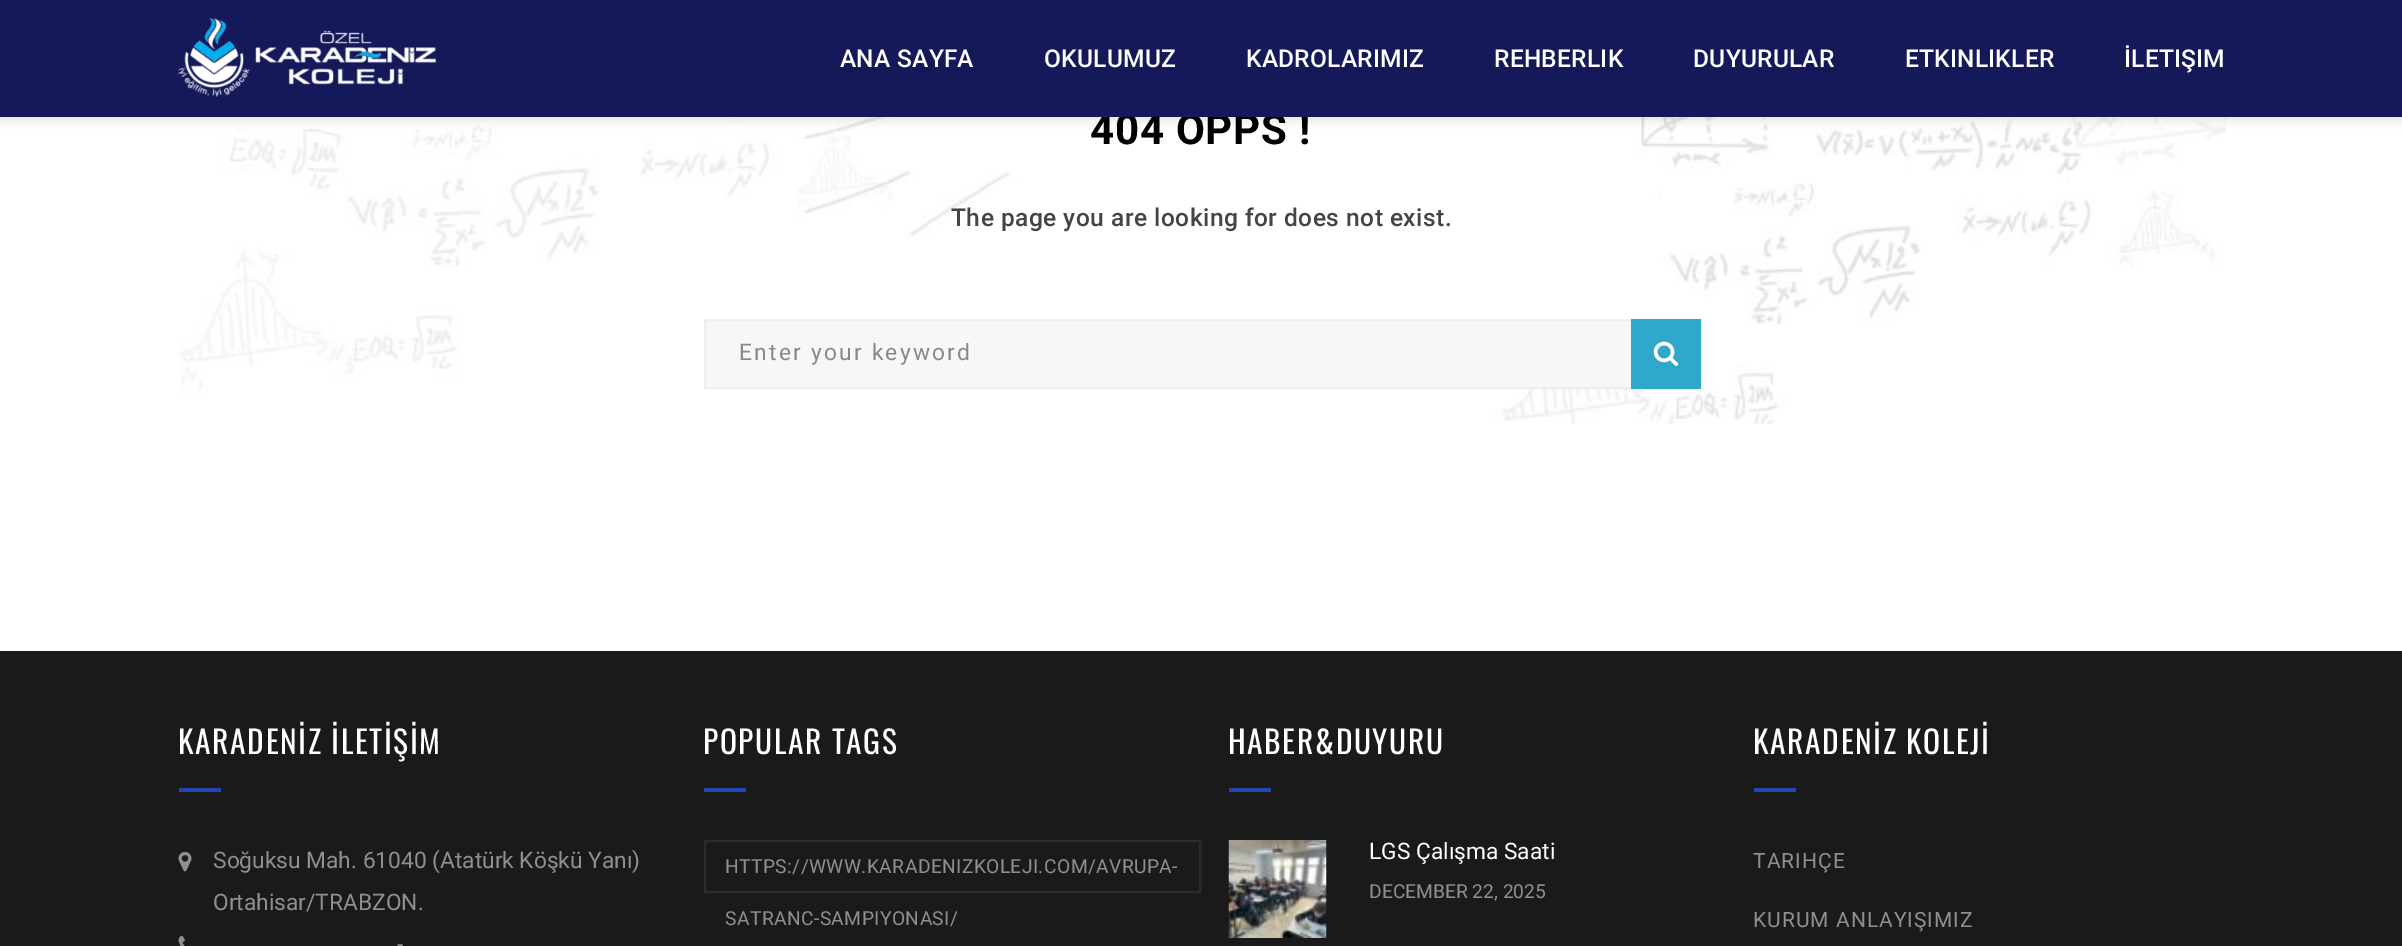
%!PS
<< /PageSize [2402 946] /PageUsesTransparency true >> setpagedevice
/alpha { dup .setfillconstantalpha .setstrokeconstantalpha } def
/roundrect { 5 dict begin { /r /h /w /y /x } { exch def } forall
  x r add y moveto x w add y 2 copy h add r arct x w add y h add x 1 index r arct
  x y h add x y r arct x y 2 copy exch w add exch r arct closepath end } def
/shadow { 12 dict begin { /a /b /q /h /w /y /x } { exch def } forall gsave /was 0 def
  9 -2 -9 { dup b mul 4 div /e exch def 1 sub .425 mul 2.718 exch exp 1 add a .99 .min exch div /now exch def
    1 1 now sub 1 was sub div sub alpha /was now def
    w h .min e 2 mul add 0 gt { x e sub y e sub w e 2 mul add h e 2 mul add
      q e add b .6 mul add w h .min 2 div e add .min 0 .max roundrect fill } if } for grestore end } def
/picture { 5 dict begin { /h /w /y /x /name } { exch def } forall
  gsave x y translate w h scale
  w h 8 [w 0 0 h 0 0] name (r) file false 3 colorimage grestore end } def
0 .pushpdf14devicefilter
0 946 translate 1 -1 scale
4 setmiterlimit
1 setgray
0 0 2402 946 rectfill
(img2.rgb) 178 117 2048 307 picture
0 setgray
-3 -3 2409 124 0 4.5 0.1 shadow
/Roboto-Bold [42 0 0 -42 0 0] selectfont
1090 144 moveto 0.75 0 (404 OPPS !) ashow
0.082 0.098 0.353 setrgbcolor
0 0 2402 117 rectfill
(img1.rgb) 178 18 258 79 picture
/Roboto-Medium [24.5 0 0 -24.5 0 0] selectfont
1 setgray
840 67 moveto 0.25 0 (ANA SAYFA) ashow
1044 67 moveto 0.25 0 (OKULUMUZ) ashow
1246 67 moveto 0.25 0 (KADROLARIMIZ) ashow
1494 67 moveto 0.25 0 (REHBERLIK) ashow
1693 67 moveto 0.25 0 (DUYURULAR) ashow
1905 67 moveto 0.25 0 (ETKINLIKLER) ashow
2124 67 moveto 0.25 0 (İLETIŞIM) ashow
0.267 setgray
951 226 moveto 0.5 0 (The page you are looking for does not exist.) ashow
0.969 setgray
706 321 925 66 rectfill
0.933 setgray
2 setlinewidth
705 320 995 68 rectstroke
/Roboto-Regular [22.75 0 0 -22.75 0 0] selectfont
0.533 setgray
739 360 moveto 2.25 0 (Enter your keyword) ashow
0.188 0.659 0.8 setrgbcolor
1631 319 70 70 rectfill
(img3.rgb) 1653 341 26 25 picture
0.102 setgray
0 651 2402 295 rectfill
/Oswald-Regular [31.5 0 0 -31.5 0 0] selectfont
1 setgray
178 754 moveto 1.6 0 (KARADENİZ İLETİŞİM) ashow
0.137 0.278 0.698 setrgbcolor
179 788 42 4 rectfill
(img4.rgb) 178 851 14 21 picture
/Roboto-Regular [22.75 0 0 -22.75 0 0] selectfont
0.561 setgray
213 868 moveto (Soğuksu Mah. 61040 \(Atatürk Köşkü Yanı\)) show
213 910 moveto (Ortahisar/TRABZON.) show
(img5.rgb) 178 935 7 11 picture
397 952 moveto (-) show
/Oswald-Regular [31.5 0 0 -31.5 0 0] selectfont
1 setgray
703 754 moveto 1.6 0 (POPULAR TAGS) ashow
0.137 0.278 0.698 setrgbcolor
704 788 42 4 rectfill
0.173 setgray
705 841 495 51 rectstroke
/Roboto-Regular [19.25 0 0 -19.25 0 0] selectfont
0.561 setgray
725 873 moveto 0.4 0 (HTTPS://WWW.KARADENIZKOLEJI.COM/AVRUPA-) ashow
725 925 moveto 0.4 0 (SATRANC-SAMPIYONASI/) ashow
/Oswald-Regular [31.5 0 0 -31.5 0 0] selectfont
1 setgray
1228 754 moveto 1.6 0 (HABER&DUYURU) ashow
0.137 0.278 0.698 setrgbcolor
1229 788 42 4 rectfill
(img6.rgb) 1228 840 99 98 picture
/Roboto-Regular [22.75 0 0 -22.75 0 0] selectfont
1 setgray
1369 859 moveto (LGS Çalışma Saati) show
/Roboto-Regular [19.25 0 0 -19.25 0 0] selectfont
0.561 setgray
1369 898 moveto (DECEMBER 22, 2025) show
/Oswald-Regular [31.5 0 0 -31.5 0 0] selectfont
1 setgray
1753 754 moveto 1.6 0 (KARADENİZ KOLEJİ) ashow
0.137 0.278 0.698 setrgbcolor
1754 788 42 4 rectfill
/Roboto-Regular [21 0 0 -21 0 0] selectfont
0.561 setgray
1753 868 moveto 1 0 (TARIHÇE) ashow
1753 927 moveto 1 0 (KURUM ANLAYIŞIMIZ) ashow
.poppdf14devicefilter showpage
